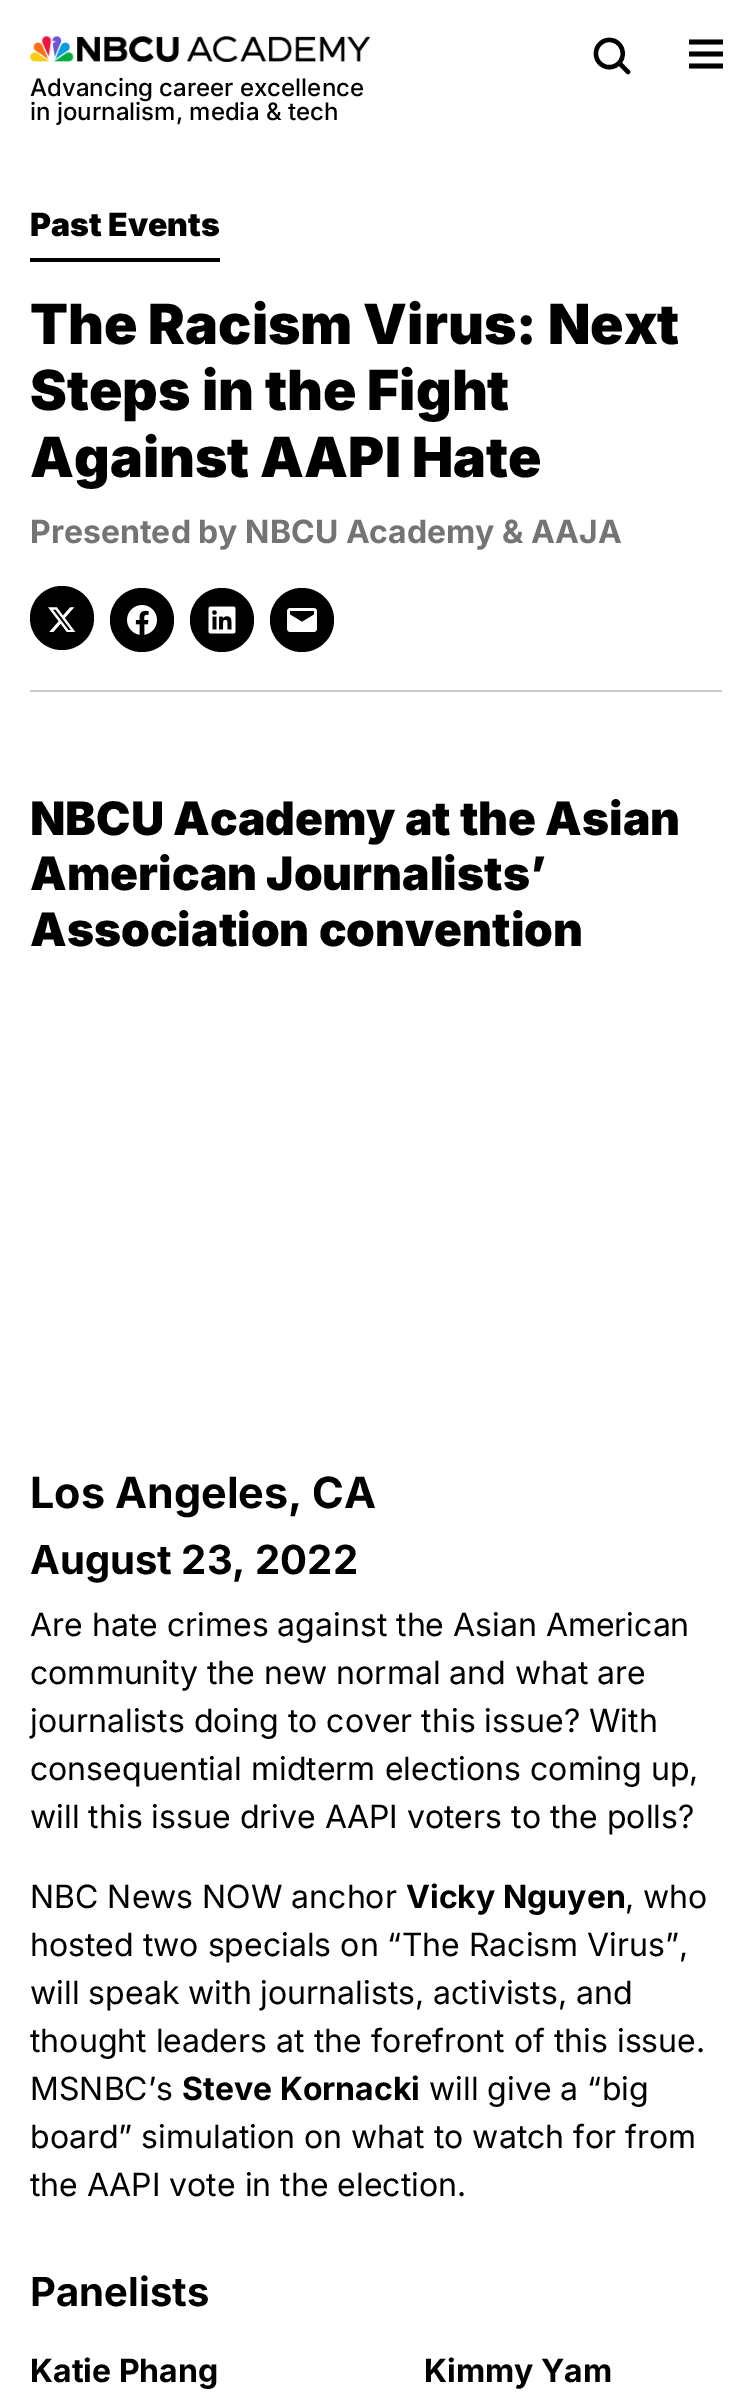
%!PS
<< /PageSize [751 2402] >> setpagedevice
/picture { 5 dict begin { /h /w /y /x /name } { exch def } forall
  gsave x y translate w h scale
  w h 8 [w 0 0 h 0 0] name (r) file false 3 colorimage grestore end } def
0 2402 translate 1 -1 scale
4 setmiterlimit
1 setgray
0 0 751 2402 rectfill
(img1.rgb) 593 37 38 38 picture
0 setgray
newpath 689 56.5 moveto 723 56.5 lineto 723 51.5 lineto 689 51.5 lineto closepath 689 68.5 moveto 723 68.5 lineto 723 63.5 lineto 689 63.5 lineto closepath 689 39.5 moveto 689 44.5 lineto 723 44.5 lineto 723 39.5 lineto closepath fill
(img2.rgb) 30 36 340 26 picture
/Inter-Medium [24 0 0 -24 0 0] selectfont
30 96 moveto (Advancing career excellence) show
30 120 moveto (in journalism, media & tech) show
0.792 setgray
30 690 692 2 rectfill
0 setgray
30 258 190 4 rectfill
/Inter-Black [32 0 0 -32 0 0] selectfont
30 236 moveto (Past Events) show
/Inter-Black [55.25 0 0 -55.25 0 0] selectfont
30 344 moveto (The Racism Virus: Next) show
30 410 moveto (Steps in the Fight) show
30 477 moveto (Against AAPI Hate) show
/Inter-Bold [32 0 0 -32 0 0] selectfont
0.455 setgray
30 543 moveto (Presented by NBCU Academy & AAJA) show
0 setgray
newpath 62 618 32 0 360 arc closepath fill
(img3.rgb) 48 607 28 25 picture
newpath 142 620 32 0 360 arc closepath fill
(img4.rgb) 127 605 30 30 picture
newpath 222 620 32 0 360 arc closepath fill
(img5.rgb) 208 606 28 28 picture
newpath 302 620 32 0 360 arc closepath fill
(img6.rgb) 287 608 30 24 picture
/Inter-Black [46.1 0 0 -46.1 0 0] selectfont
30 835 moveto (NBCU Academy at the Asian) show
30 890 moveto (American Journalists’) show
30 946 moveto (Association convention) show
/Inter-Bold [43 0 0 -43 0 0] selectfont
30 1508 moveto (Los Angeles, CA) show
/Inter-Bold [40 0 0 -40 0 0] selectfont
30 1574 moveto (August 23, 2022) show
/Inter-Regular [32 0 0 -32 0 0] selectfont
30 1636 moveto (Are hate crimes against the Asian American) show
30 1684 moveto (community the new normal and what are) show
30 1732 moveto (journalists doing to cover this issue? With) show
30 1780 moveto (consequential midterm elections coming up,) show
30 1828 moveto (will this issue drive AAPI voters to the polls?) show
30 1908 moveto (NBC News NOW anchor) show
/Inter-Bold [32 0 0 -32 0 0] selectfont
406 1908 moveto (Vicky Nguyen) show
/Inter-Regular [32 0 0 -32 0 0] selectfont
625 1908 moveto (, who) show
30 1956 moveto (hosted two specials on “The Racism Virus”,) show
30 2004 moveto (will speak with journalists, activists, and) show
30 2052 moveto (thought leaders at the forefront of this issue.) show
30 2100 moveto (MSNBC’s) show
/Inter-Bold [32 0 0 -32 0 0] selectfont
182 2100 moveto (Steve Kornacki) show
/Inter-Regular [32 0 0 -32 0 0] selectfont
429 2100 moveto (will give a “big) show
30 2148 moveto (board” simulation on what to watch for from) show
30 2196 moveto (the AAPI vote in the election.) show
/Inter-Bold [40 0 0 -40 0 0] selectfont
30 2306 moveto (Panelists) show
/Inter-Bold [32 0 0 -32 0 0] selectfont
30 2382 moveto (Katie Phang) show
424 2382 moveto (Kimmy Yam) show
showpage
